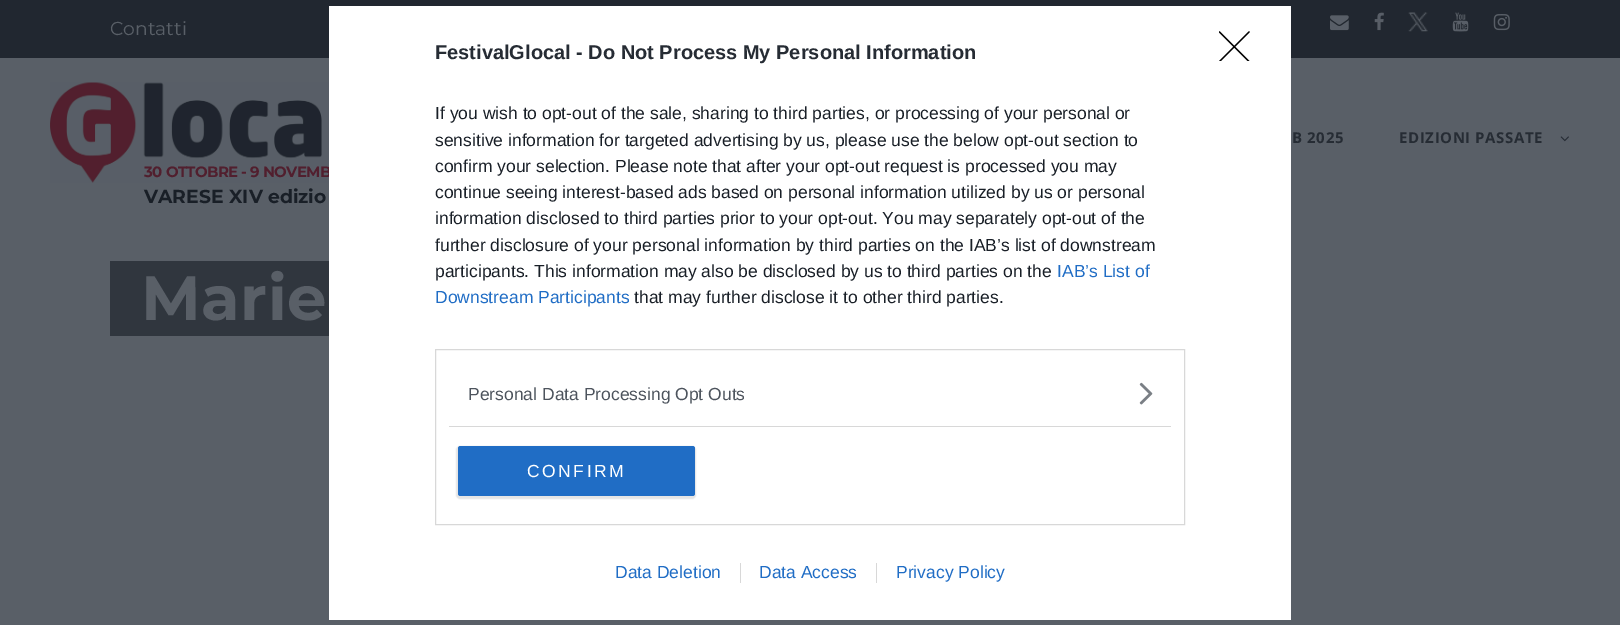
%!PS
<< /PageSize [1620 625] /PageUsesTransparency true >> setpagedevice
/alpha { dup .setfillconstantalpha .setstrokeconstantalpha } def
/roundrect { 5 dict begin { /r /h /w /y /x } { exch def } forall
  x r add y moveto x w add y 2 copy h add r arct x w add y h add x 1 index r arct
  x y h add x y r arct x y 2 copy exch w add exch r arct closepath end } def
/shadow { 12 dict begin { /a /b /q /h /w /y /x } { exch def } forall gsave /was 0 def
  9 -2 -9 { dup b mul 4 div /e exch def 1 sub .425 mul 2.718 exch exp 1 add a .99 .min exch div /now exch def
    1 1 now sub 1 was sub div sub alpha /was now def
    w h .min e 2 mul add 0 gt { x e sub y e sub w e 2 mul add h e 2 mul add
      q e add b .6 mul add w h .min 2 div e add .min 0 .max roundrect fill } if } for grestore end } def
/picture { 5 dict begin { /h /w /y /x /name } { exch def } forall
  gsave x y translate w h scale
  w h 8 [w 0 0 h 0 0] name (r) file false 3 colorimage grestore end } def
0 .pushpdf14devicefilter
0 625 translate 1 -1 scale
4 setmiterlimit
0.349 0.373 0.404 setrgbcolor
0 0 1620 625 rectfill
0.129 0.153 0.188 setrgbcolor
0 0 1620 58 rectfill
/Montserrat-Regular [18.75 0 0 -18.75 0 0] selectfont
0.349 0.373 0.404 setrgbcolor
110 35 moveto (Contatti) show
(img1.rgb) 1330 15 19 16 picture
(img2.rgb) 1374 12 10 19 picture
(img3.rgb) 1408 12 20 20 picture
(img4.rgb) 1452 12 17 20 picture
(img5.rgb) 1493 14 17 17 picture
/OpenSans-Bold [15 0 0 -15 0 0] selectfont
0.149 0.173 0.204 setrgbcolor
1292 143 moveto 0.6 0 (B 2025) ashow
1399 143 moveto 0.6 0 (EDIZIONI PASSATE) ashow
(img6.rgb) 1560 136 9 6 picture
(img7.rgb) 50 82 279 101 picture
/Montserrat-Bold [15 0 0 -15 0 0] selectfont
0.318 0.122 0.18 setrgbcolor
144 177 moveto -0.6 0 (30 OTTOBRE - 9 NOVEMB) ashow
/Montserrat-Bold [18.75 0 0 -18.75 0 0] selectfont
0.098 0.122 0.153 setrgbcolor
144 203 moveto (VARESE) show
229 203 moveto (XIV edizio) show
0.188 0.212 0.243 setrgbcolor
110 261 219 75 rectfill
/Montserrat-Bold [62.5 0 0 -62.5 0 0] selectfont
0.349 0.373 0.404 setrgbcolor
141 320 moveto 0.6 0 (Marie) ashow
1 setgray
329 6 962 614 rectfill
/LiberationSans-Bold [20 0 0 -20 0 0] selectfont
0.149 0.173 0.204 setrgbcolor
435 59 moveto (FestivalGlocal - Do Not Process My Personal Information) show
/LiberationSans-Regular [17.5 0 0 -17.5 0 0] selectfont
0.098 0.122 0.153 setrgbcolor
435 119 moveto (If you wish to opt-out of the sale, sharing to third parties, or processing of your personal or) show
435 146 moveto (sensitive information for targeted advertising by us, please use the below opt-out section to) show
435 172 moveto (confirm your selection. Please note that after your opt-out request is processed you may) show
435 198 moveto (continue seeing interest-based ads based on personal information utilized by us or personal) show
435 224 moveto (information disclosed to third parties prior to your opt-out. You may separately opt-out of the) show
435 251 moveto (further disclosure of your personal information by third parties on the IAB’s list of downstream) show
435 277 moveto (participants. This information may also be disclosed by us to third parties on the) show
0.125 0.427 0.773 setrgbcolor
1057 277 moveto (IAB’s List of) show
435 303 moveto (Downstream Participants) show
0.098 0.122 0.153 setrgbcolor
634 303 moveto (that may further disclose it to other third parties.) show
0.847 setgray
435.5 349.5 749 175 rectstroke
449 426 722 1 rectfill
0.302 0.329 0.365 setrgbcolor
468 400 moveto (Personal Data Processing Opt Outs) show
(img8.rgb) 1139 382 14 23 picture
0 setgray
456 446 240 53 4 0.5 0.1 shadow
0.125 0.427 0.773 setrgbcolor
458 446 237 50 2.5 roundrect fill
1 setgray
527 477 moveto 2.5 0 (CONFIRM) ashow
gsave
1219 31 31 30 rectclip
0 setgray
1.3 setlinewidth
1 setlinecap
1 setlinejoin
newpath 1219.5 32 moveto 1249 61.5 lineto 1249 32 moveto 1219.5 61.5 lineto stroke
grestore
0.125 0.427 0.773 setrgbcolor
615 578 moveto (Data Deletion) show
759 578 moveto (Data Access) show
0.847 setgray
740 563 1 20 rectfill
0.125 0.427 0.773 setrgbcolor
896 578 moveto (Privacy Policy) show
0.847 setgray
876 563 1 20 rectfill
.poppdf14devicefilter showpage
